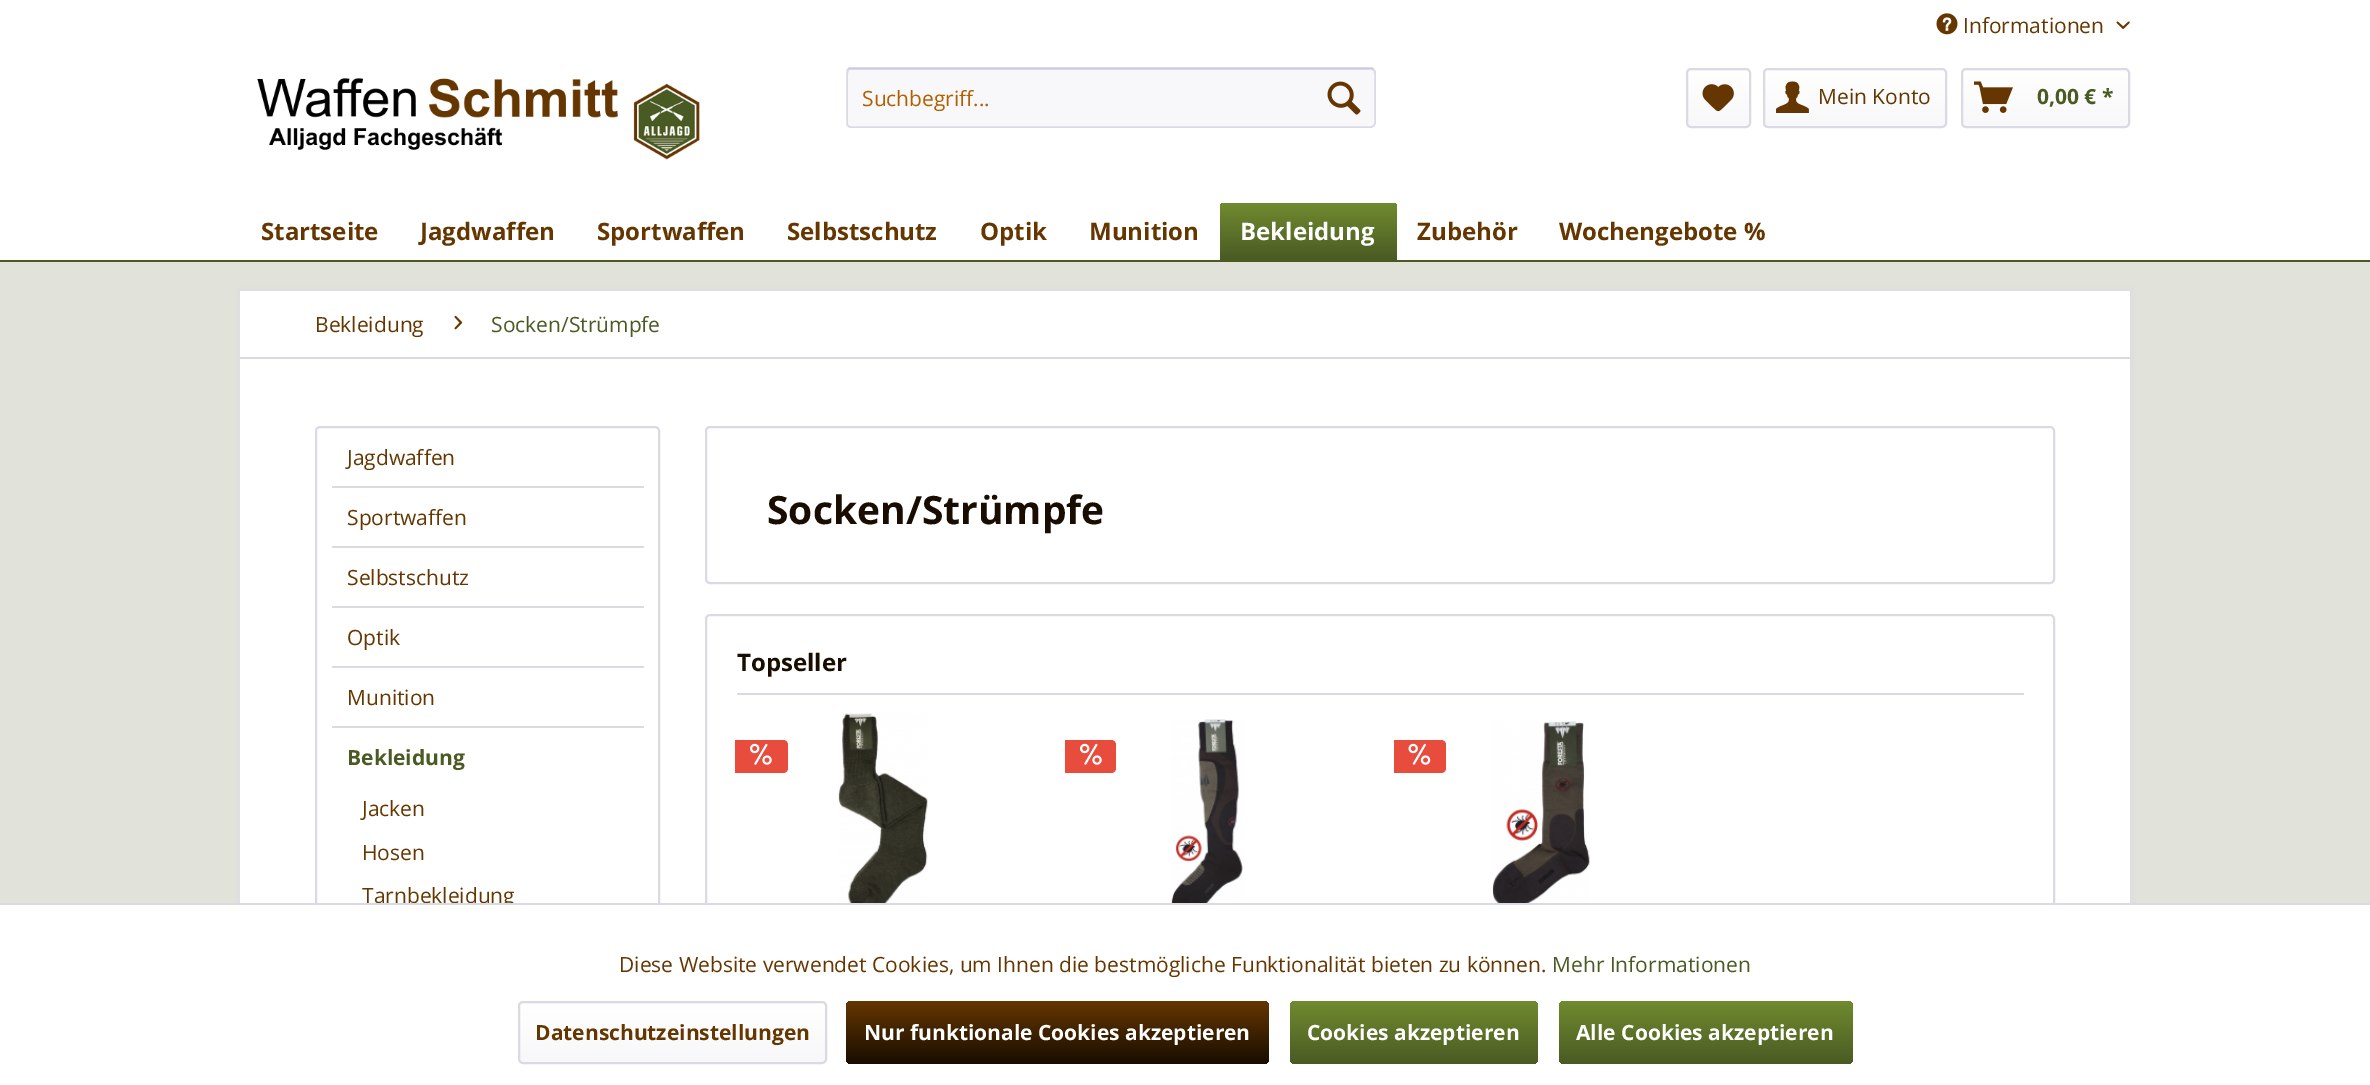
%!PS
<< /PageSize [2370 1085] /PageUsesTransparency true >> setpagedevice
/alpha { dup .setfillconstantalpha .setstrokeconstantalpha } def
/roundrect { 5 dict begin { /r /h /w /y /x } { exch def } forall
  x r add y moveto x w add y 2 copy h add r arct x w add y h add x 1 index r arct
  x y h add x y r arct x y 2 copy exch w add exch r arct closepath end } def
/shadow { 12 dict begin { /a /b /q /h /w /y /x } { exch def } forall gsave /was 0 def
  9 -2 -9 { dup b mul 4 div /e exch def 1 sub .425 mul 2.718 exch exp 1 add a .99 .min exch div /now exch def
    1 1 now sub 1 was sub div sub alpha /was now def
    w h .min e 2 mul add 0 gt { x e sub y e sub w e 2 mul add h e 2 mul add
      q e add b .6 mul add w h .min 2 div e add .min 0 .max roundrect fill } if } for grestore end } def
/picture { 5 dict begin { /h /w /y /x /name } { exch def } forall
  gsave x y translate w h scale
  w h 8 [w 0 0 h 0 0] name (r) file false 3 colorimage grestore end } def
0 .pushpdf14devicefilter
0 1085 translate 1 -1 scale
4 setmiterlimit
0.882 0.886 0.851 setrgbcolor
0 0 2370 1085 rectfill
1 setgray
0 0 2370 260 rectfill
(img1.rgb) 1936 13 22 22 picture
/OpenSans-Regular [21 0 0 -21 0 0] selectfont
0.396 0.212 0 setrgbcolor
1963 33 moveto (Informationen) show
(img2.rgb) 2116 21 14 8 picture
(img3.rgb) 257 78 443 82 picture
0.973 0.973 0.98 setrgbcolor
846 68 530 60 5 roundrect fill
0.855 0.855 0.898 setrgbcolor
newpath 850 70 moveto 1371 70 lineto 1373 70 1374 72 1374 74 curveto 1373 70 lineto 1371 69 lineto 851 69 lineto 848 69 848 72 848 74 curveto 848 72 849 70 850 70 curveto closepath fill
0.796 0.796 0.859 setrgbcolor
1.5 setlinewidth
newpath 848 69.5 moveto 848.5 68.5 849.5 68 850.5 68 curveto 1371 68 lineto 1372 68 1373 68.5 1373.5 69.5 curveto stroke
0.855 0.855 0.898 setrgbcolor
newpath 1373.5 69.5 moveto 1374.5 70 1375 71 1375 72 curveto 1375 123 lineto 1375 124 1374.5 125 1373.5 125.5 curveto 1373 126.5 1372 127 1371 127 curveto 850.5 127 lineto 849.5 127 848.5 126.5 848 125.5 curveto 847 125 847 124 847 123 curveto 847 72 lineto 847 71 847 70 848 69.5 curveto stroke
0.698 0.373 0 setrgbcolor
862 106 moveto (Suchbegriff...) show
(img4.rgb) 1327 81 34 34 picture
gsave 1688 69 61 57 3 roundrect clip newpath
<< /ShadingType 2 /ColorSpace /DeviceRGB /Coords [1718 69 1718 126] /Extend [true true] /Function << /FunctionType 2 /Domain [0 1] /C0 [1 1 1] /C1 [0.973 0.973 0.98] /N 1 >> >> shfill grestore
0.855 0.855 0.898 setrgbcolor
2 setlinewidth
1687 69 63 58 4 roundrect stroke
(img5.rgb) 1702 84 32 28 picture
gsave 1764 69 182 57 3 roundrect clip newpath
<< /ShadingType 2 /ColorSpace /DeviceRGB /Coords [1855 69 1855 126] /Extend [true true] /Function << /FunctionType 2 /Domain [0 1] /C0 [1 1 1] /C1 [0.973 0.973 0.98] /N 1 >> >> shfill grestore
1764 69 182 58 4 roundrect stroke
(img6.rgb) 1776 81 33 32 picture
0.396 0.212 0 setrgbcolor
1818 104 moveto (Mein Konto) show
gsave 1962 69 167 57 3 roundrect clip newpath
<< /ShadingType 2 /ColorSpace /DeviceRGB /Coords [2045 69 2045 126] /Extend [true true] /Function << /FunctionType 2 /Domain [0 1] /C0 [1 1 1] /C1 [0.973 0.973 0.98] /N 1 >> >> shfill grestore
0.855 0.855 0.898 setrgbcolor
1962 69 167 58 4 roundrect stroke
(img7.rgb) 1974 81 39 32 picture
/OpenSans-Bold [21 0 0 -21 0 0] selectfont
0.29 0.353 0.137 setrgbcolor
2037 104 moveto (0,00 € *) show
0 260 2370 2 rectfill
/OpenSans-Bold [24 0 0 -24 0 0] selectfont
0.396 0.212 0 setrgbcolor
261 240 moveto (Startseite) show
420 240 moveto (Jagdwaffen) show
597 240 moveto (Sportwaffen) show
787 240 moveto (Selbstschutz) show
980 240 moveto (Optik) show
1089 240 moveto (Munition) show
gsave newpath 1225 203 moveto 1392 203 lineto 1395 203 1397 205 1397 208 curveto 1397 260 lineto 1220 260 lineto 1220 208 lineto 1220 205 1222 203 1225 203 curveto closepath clip newpath
<< /ShadingType 2 /ColorSpace /DeviceRGB /Coords [1308 203 1308 260] /Extend [true true] /Function << /FunctionType 2 /Domain [0 1] /C0 [0.439 0.545 0.184] /C1 [0.29 0.353 0.137] /N 1 >> >> shfill grestore
1 setgray
1240 240 moveto (Bekleidung) show
0.396 0.212 0 setrgbcolor
1417 240 moveto (Zubehör) show
1559 240 moveto (Wochengebote %) show
0.855 0.855 0.898 setrgbcolor
239 290 1893 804 0 3 1 shadow
1 setgray
240 291 1890 612 rectfill
0.855 0.855 0.898 setrgbcolor
240 357 1890 2 rectfill
/OpenSans-Regular [21 0 0 -21 0 0] selectfont
0.396 0.212 0 setrgbcolor
315 332 moveto (Bekleidung) show
(img8.rgb) 454 315 9 15 picture
0.29 0.353 0.137 setrgbcolor
491 332 moveto (Socken/Strümpfe) show
0.855 0.855 0.898 setrgbcolor
316 427 343 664 4 roundrect stroke
332 486 312 2 rectfill
0.396 0.212 0 setrgbcolor
347 465 moveto (Jagdwaffen) show
0.855 0.855 0.898 setrgbcolor
332 546 312 2 rectfill
0.396 0.212 0 setrgbcolor
347 525 moveto (Sportwaffen) show
0.855 0.855 0.898 setrgbcolor
332 606 312 2 rectfill
0.396 0.212 0 setrgbcolor
347 585 moveto (Selbstschutz) show
0.855 0.855 0.898 setrgbcolor
332 666 312 2 rectfill
0.396 0.212 0 setrgbcolor
347 645 moveto (Optik) show
0.855 0.855 0.898 setrgbcolor
332 726 312 2 rectfill
0.396 0.212 0 setrgbcolor
347 705 moveto (Munition) show
/OpenSans-Bold [21 0 0 -21 0 0] selectfont
0.29 0.353 0.137 setrgbcolor
347 765 moveto (Bekleidung) show
/OpenSans-Regular [21 0 0 -21 0 0] selectfont
0.396 0.212 0 setrgbcolor
362 816 moveto (Jacken) show
362 860 moveto (Hosen) show
362 903 moveto (Tarnbekleidung) show
0.855 0.855 0.898 setrgbcolor
706 427 1348 156 4 roundrect stroke
/OpenSans-Bold [39 0 0 -39 0 0] selectfont
0.094 0.051 0 setrgbcolor
767 524 moveto (Socken/Strümpfe) show
0.855 0.855 0.898 setrgbcolor
706 615 1348 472 4 roundrect stroke
737 693 1287 2 rectfill
/OpenSans-Bold [24 0 0 -24 0 0] selectfont
0.094 0.051 0 setrgbcolor
737 671 moveto (Topseller) show
0.906 0.298 0.235 setrgbcolor
newpath 735 740 moveto 783 740 lineto 786 740 788 742 788 745 curveto 788 768 lineto 788 771 786 773 783 773 curveto 735 773 lineto closepath fill
(img9.rgb) 750 743 22 22 picture
(img10.rgb) 838 713 90 190 picture
newpath 1065 740 moveto 1111 740 lineto 1114 740 1116 742 1116 745 curveto 1116 768 lineto 1116 771 1114 773 1111 773 curveto 1065 773 lineto closepath fill
(img9.rgb) 1080 743 22 22 picture
(img11.rgb) 1171 719 72 184 picture
newpath 1394 740 moveto 1441 740 lineto 1444 740 1446 742 1446 745 curveto 1446 768 lineto 1446 771 1444 773 1441 773 curveto 1394 773 lineto closepath fill
(img12.rgb) 1408 743 23 22 picture
(img13.rgb) 1492 721 98 182 picture
1 setgray
0 905 2370 180 rectfill
0.855 0.855 0.898 setrgbcolor
0 903 2370 2 rectfill
/OpenSans-Regular [21 0 0 -21 0 0] selectfont
0.396 0.212 0 setrgbcolor
619 972 moveto (Diese Website verwendet Cookies, um Ihnen die bestmögliche Funktionalität bieten zu können.) show
0.29 0.353 0.137 setrgbcolor
1552 972 moveto (Mehr Informationen) show
gsave 519 1002 306 60 3 roundrect clip newpath
<< /ShadingType 2 /ColorSpace /DeviceRGB /Coords [672 1002 672 1062] /Extend [true true] /Function << /FunctionType 2 /Domain [0 1] /C0 [1 1 1] /C1 [0.973 0.973 0.98] /N 1 >> >> shfill grestore
0.855 0.855 0.898 setrgbcolor
519 1002 307 61 4 roundrect stroke
/OpenSans-Bold [21 0 0 -21 0 0] selectfont
0.396 0.212 0 setrgbcolor
535 1040 moveto (Datenschutzeinstellungen) show
gsave 846 1001 423 63 5 roundrect clip newpath
<< /ShadingType 2 /ColorSpace /DeviceRGB /Coords [1058 1001 1058 1064] /Extend [true true] /Function << /FunctionType 2 /Domain [0 1] /C0 [0.396 0.212 0] /C1 [0.094 0.051 0] /N 1 >> >> shfill grestore
1 setgray
864 1040 moveto (Nur funktionale Cookies akzeptieren) show
gsave 1290 1001 248 63 5 roundrect clip newpath
<< /ShadingType 2 /ColorSpace /DeviceRGB /Coords [1414 1001 1414 1064] /Extend [true true] /Function << /FunctionType 2 /Domain [0 1] /C0 [0.439 0.545 0.184] /C1 [0.29 0.353 0.137] /N 1 >> >> shfill grestore
1307 1040 moveto (Cookies akzeptieren) show
gsave 1559 1001 294 63 5 roundrect clip newpath
<< /ShadingType 2 /ColorSpace /DeviceRGB /Coords [1706 1001 1706 1064] /Extend [true true] /Function << /FunctionType 2 /Domain [0 1] /C0 [0.439 0.545 0.184] /C1 [0.29 0.353 0.137] /N 1 >> >> shfill grestore
1576 1040 moveto (Alle Cookies akzeptieren) show
.poppdf14devicefilter showpage
